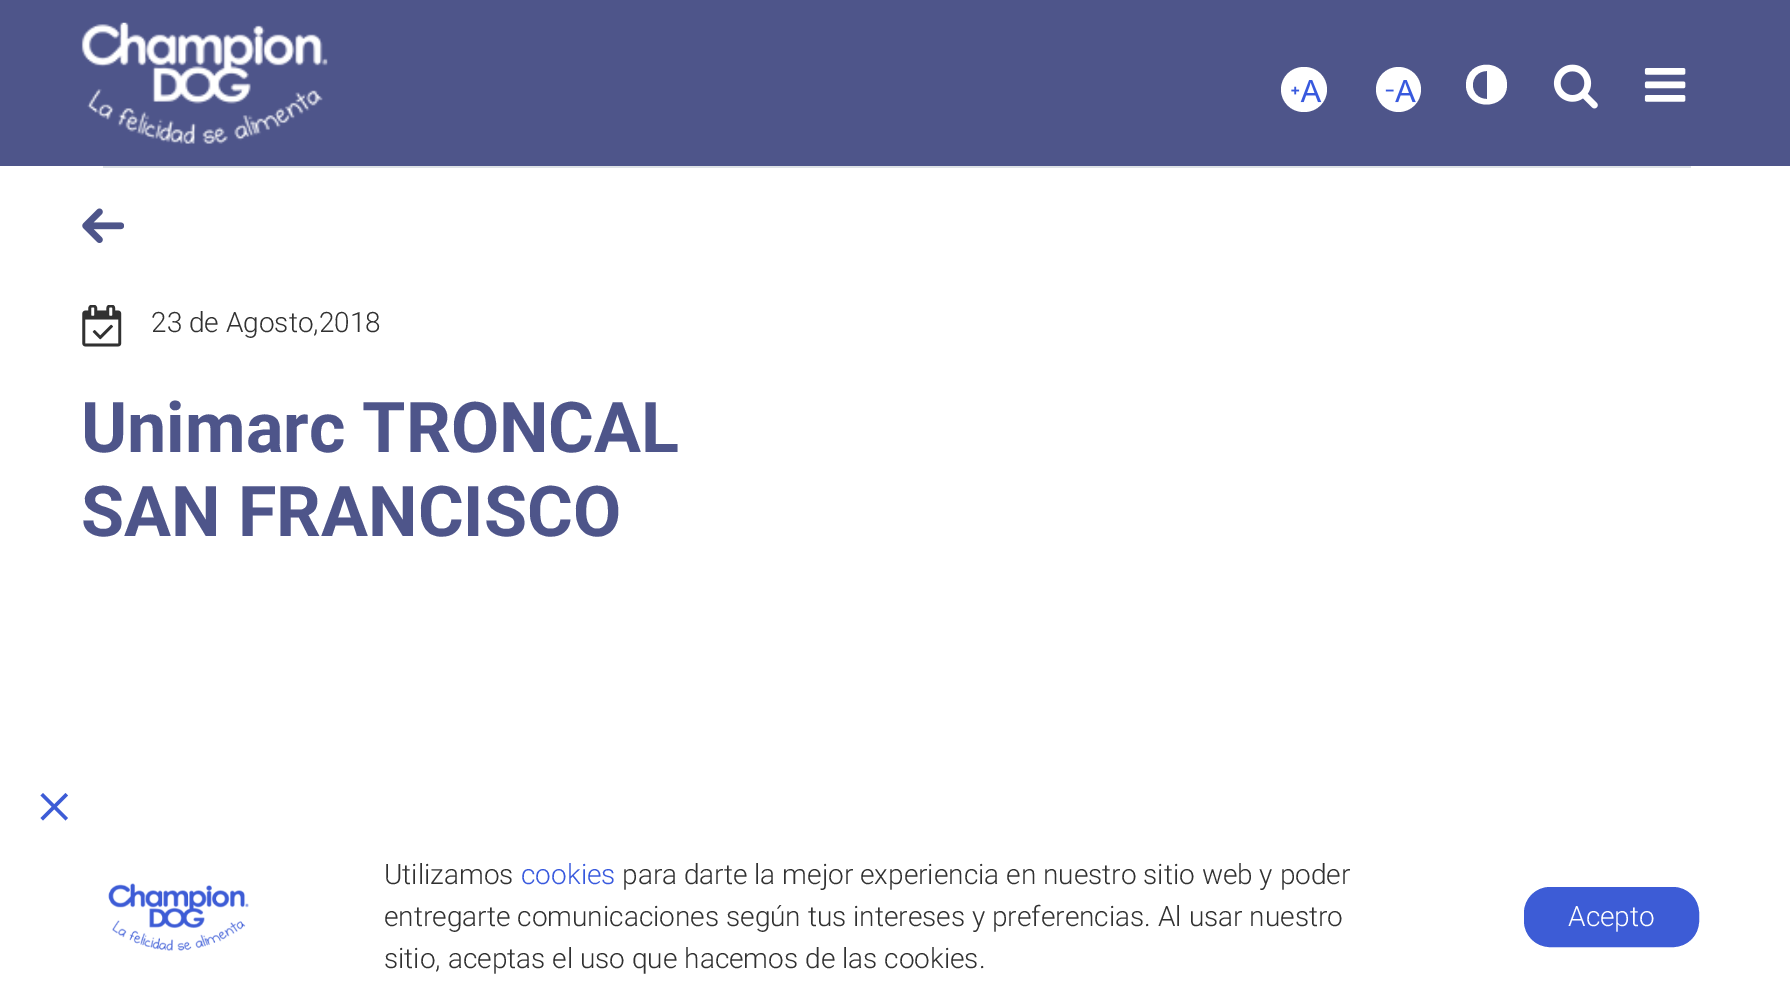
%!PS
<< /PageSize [1790 1000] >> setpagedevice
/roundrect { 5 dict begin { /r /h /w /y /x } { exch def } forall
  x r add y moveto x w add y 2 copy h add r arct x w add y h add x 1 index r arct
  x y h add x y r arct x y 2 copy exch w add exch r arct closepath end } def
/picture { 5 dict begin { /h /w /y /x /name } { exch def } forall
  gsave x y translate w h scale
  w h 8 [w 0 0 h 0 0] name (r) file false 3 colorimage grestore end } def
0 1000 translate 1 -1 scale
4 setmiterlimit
1 setgray
0 0 1790 1000 rectfill
0.306 0.333 0.541 setrgbcolor
0 0 1790 166 rectfill
(img1.rgb) 81 22 247 122 picture
1 setgray
1281 67 46 45 22.5 roundrect fill
(img2.rgb) 1291 80 31 23 picture
newpath 1398.5 89.5 22.5 0 360 arc closepath fill
(img3.rgb) 1385 80 31 23 picture
newpath 1487 99 moveto 1487 71 lineto 1468 71 1468 99 1487 99 curveto closepath 1507 85 moveto 1507 111 1466 111 1466 85 curveto 1466 58 1507 58 1507 85 curveto closepath fill
(img4.rgb) 1553 64 45 45 picture
(img5.rgb) 1644 68 42 34 picture
0.871 0.886 0.902 setrgbcolor
103 166 1588 2 rectfill
(img6.rgb) 82 208 42 35 picture
(img7.rgb) 82 305 40 42 picture
/Roboto-Light [28 0 0 -28 0 0] selectfont
0.192 setgray
151 332 moveto (23 de Agosto,2018) show
/Roboto-Bold [70 0 0 -70 0 0] selectfont
0.306 0.333 0.541 setrgbcolor
81 452 moveto (Unimarc TRONCAL) show
81 536 moveto (SAN FRANCISCO) show
0.239 0.361 0.839 setrgbcolor
newpath 43 793 moveto 68 818 lineto 65.5 820.5 lineto 40.5 795.5 lineto closepath fill
newpath 40.5 818 moveto 65.5 793 lineto 68 795.5 lineto 43 820.5 lineto closepath fill
(img8.rgb) 108 883 141 68 picture
/Roboto-Light [28 0 0 -28 0 0] selectfont
0.192 setgray
384 884 moveto (Utilizamos) show
0.22 0.349 0.871 setrgbcolor
521 884 moveto (cookies) show
0.192 setgray
622 884 moveto (para darte la mejor experiencia en nuestro sitio web y poder) show
384 926 moveto (entregarte comunicaciones según tus intereses y preferencias. Al usar nuestro) show
384 968 moveto (sitio, aceptas el uso que hacemos de las cookies.) show
0.239 0.361 0.839 setrgbcolor
1525 888 173 58 25 roundrect gsave fill grestore
2 setlinewidth
stroke
1 setgray
1568 926 moveto (Acepto) show
showpage
